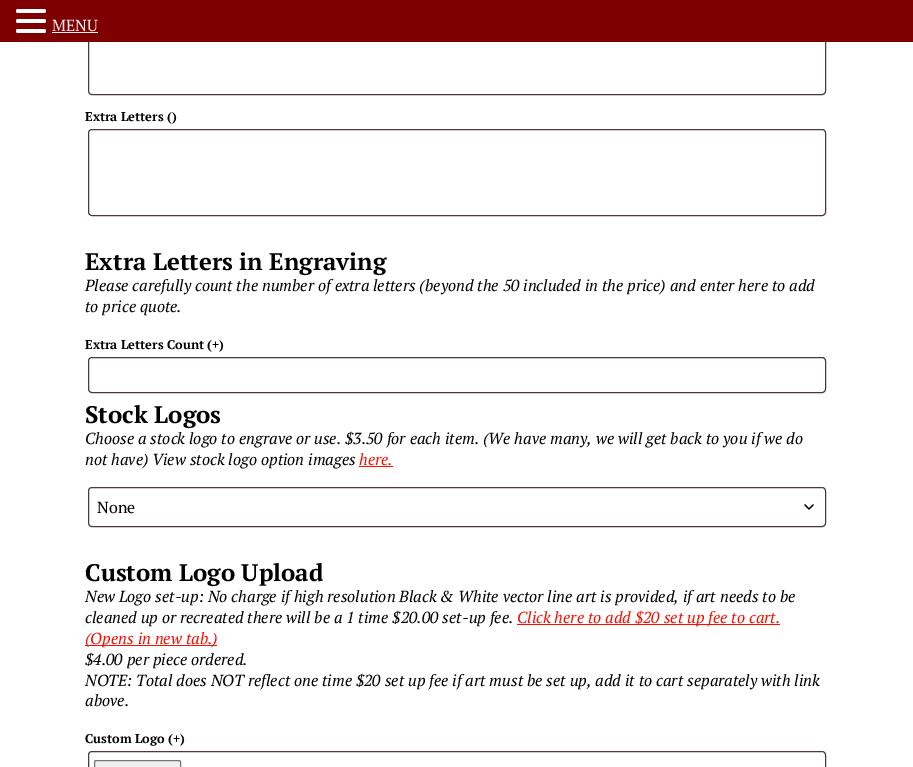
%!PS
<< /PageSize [913 767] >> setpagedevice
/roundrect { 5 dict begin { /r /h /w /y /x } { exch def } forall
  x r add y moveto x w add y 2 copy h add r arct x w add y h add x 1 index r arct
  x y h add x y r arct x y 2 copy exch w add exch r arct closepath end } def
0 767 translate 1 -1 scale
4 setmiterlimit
1 setgray
0 0 913 767 rectfill
0.302 0.224 0.224 setrgbcolor
88.5 8.5 737 86 3.5 roundrect stroke
0.498 0 0 setrgbcolor
0 0 913 42 rectfill
1 setgray
16 9 30 4 2 roundrect fill
16 19 30 4 2 roundrect fill
16 29 30 4 2 roundrect fill
/PTSerif-Regular [16 0 0 -16 0 0] selectfont
0.949 setgray
52 31 moveto (MENU) show
52 32 46 1 rectfill
/PTSerif-Bold [12.75 0 0 -12.75 0 0] selectfont
0 setgray
85 121 moveto (Extra Letters \(\)) show
0.302 0.224 0.224 setrgbcolor
88.5 129.5 737 86 3.5 roundrect stroke
/PTSerif-Bold [24 0 0 -24 0 0] selectfont
0 setgray
85 270 moveto (Extra Letters in Engraving) show
/PTSerif-Italic [16 0 0 -16 0 0] selectfont
85 291 moveto (Please carefully count the number of extra letters \(beyond the 50 included in the price\) and enter here to add) show
85 312 moveto (to price quote.) show
/PTSerif-Bold [12.75 0 0 -12.75 0 0] selectfont
85 349 moveto (Extra Letters Count \(+\)) show
0.302 0.224 0.224 setrgbcolor
88.5 357.5 737 35 3.5 roundrect stroke
/PTSerif-Bold [24 0 0 -24 0 0] selectfont
0 setgray
85 423 moveto (Stock Logos) show
/PTSerif-Italic [16 0 0 -16 0 0] selectfont
85 444 moveto (Choose a stock logo to engrave or use. $3.50 for each item. \(We have many, we will get back to you if we do) show
85 465 moveto (not have\) View stock logo option images) show
0.976 0.059 0.004 setrgbcolor
359 465 moveto (here.) show
359 466 34 1 rectfill
0 setgray
1.3 setlinewidth
1 setlinecap
1 setlinejoin
newpath 805 505 moveto 809 509 lineto 813 505 lineto stroke
0.302 0.224 0.224 setrgbcolor
1 setlinewidth
0 setlinecap
0 setlinejoin
88.5 487.5 737 39 3.5 roundrect stroke
/PTSerif-Regular [16 0 0 -16 0 0] selectfont
0 setgray
97 513 moveto (None) show
/PTSerif-Bold [24 0 0 -24 0 0] selectfont
85 581 moveto (Custom Logo Upload) show
/PTSerif-Italic [16 0 0 -16 0 0] selectfont
85 602 moveto (New Logo set-up: No charge if high resolution Black & White vector line art is provided, if art needs to be) show
85 623 moveto (cleaned up or recreated there will be a 1 time $20.00 set-up fee.) show
0.976 0.059 0.004 setrgbcolor
517 624 263 1 rectfill
517 623 moveto (Click here to add $20 set up fee to cart.) show
85 645 132 1 rectfill
85 644 moveto (\(Opens in new tab.\)) show
0 setgray
85 665 moveto ($4.00 per piece ordered.) show
85 686 moveto (NOTE: Total does NOT reflect one time $20 set up fee if art must be set up, add it to cart separately with link) show
85 706 moveto (above.) show
/PTSerif-Bold [12.75 0 0 -12.75 0 0] selectfont
85 743 moveto (Custom Logo \(+\)) show
0.302 0.224 0.224 setrgbcolor
88.5 751.5 737 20 3.5 roundrect stroke
0.937 setgray
94.5 760.5 86 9 1.5 roundrect gsave fill grestore
0.463 setgray
stroke
showpage
